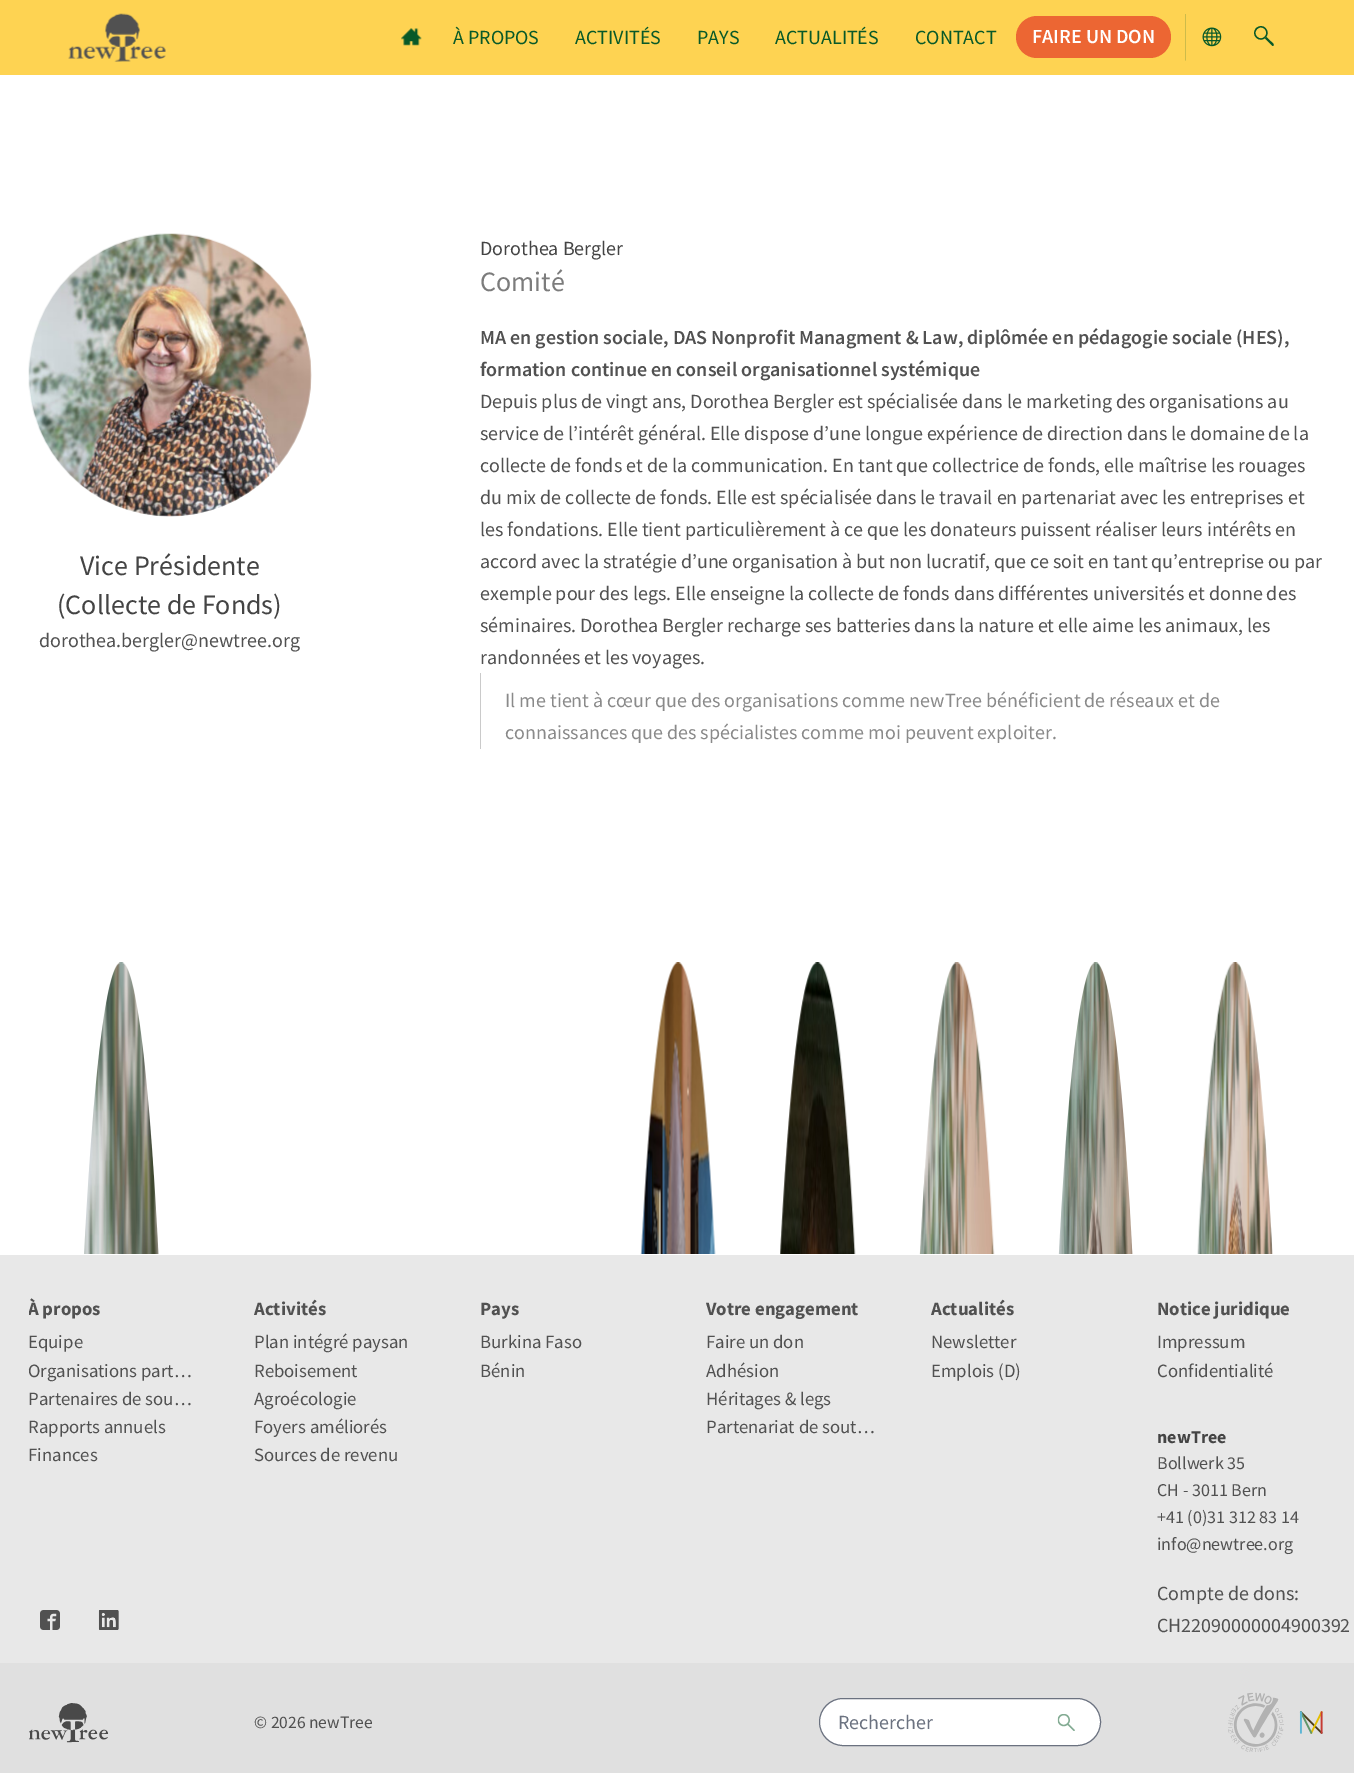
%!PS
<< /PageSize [1354 1773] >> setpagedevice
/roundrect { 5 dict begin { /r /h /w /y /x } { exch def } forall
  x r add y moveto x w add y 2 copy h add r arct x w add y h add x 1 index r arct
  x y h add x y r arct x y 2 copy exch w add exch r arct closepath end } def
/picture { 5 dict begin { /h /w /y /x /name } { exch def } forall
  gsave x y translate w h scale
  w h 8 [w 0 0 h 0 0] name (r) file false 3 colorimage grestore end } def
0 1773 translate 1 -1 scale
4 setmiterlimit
0.91 setgray
0 0 1354 1773 rectfill
0.996 0.827 0.322 setrgbcolor
0 0 1354 75 rectfill
(img1.rgb) 68 13 98 49 picture
(img2.rgb) 401 28 21 18 picture
/SourceSansPro-Regular [20 0 0 -20 0 0] selectfont
0.031 0.349 0.157 setrgbcolor
453 44 moveto (À PROPOS) show
575 44 moveto (ACTIVITÉS) show
697 44 moveto (PAYS) show
775 44 moveto (ACTUALITÉS) show
915 44 moveto (CONTACT) show
0.925 0.4 0.2 setrgbcolor
1016 16 155 42 21 roundrect fill
/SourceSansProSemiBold-SemiBold [20 0 0 -20 0 0] selectfont
1 setgray
1032 43 moveto (FAIRE UN DON) show
0.804 0.733 0.29 setrgbcolor
newpath 1185 61 moveto 1185 14 lineto 1186 14 lineto 1186 60 lineto closepath fill
(img3.rgb) 1202 27 20 20 picture
0.031 0.349 0.157 setrgbcolor
newpath 1272 45.5 moveto 1255.5 29 lineto 1256 28 lineto 1257 27 1259 29.5 1260 31 curveto 1271 41.5 lineto 1272 42.5 1274.5 44 1273.5 45.5 curveto 1273.5 46 1272.5 46 1272 45.5 curveto closepath fill
0.996 0.827 0.322 setrgbcolor
newpath 1256 37.5 moveto 1249.5 31.5 1259.5 22 1265.5 28 curveto 1272 34.5 1262.5 44 1256 37.5 curveto closepath fill
0.031 0.349 0.157 setrgbcolor
1.3 setlinewidth
newpath 1256.5 37 moveto 1251 31.5 1259.5 23 1265 28.5 curveto 1271 34.5 1262 43 1256.5 37 curveto closepath stroke
1 setgray
0 75 1354 1179 rectfill
(img4.rgb) 28 233 284 284 picture
/SourceSansPro-Regular [28 0 0 -28 0 0] selectfont
0.267 setgray
80 575 moveto (Vice Présidente) show
57 614 moveto (\(Collecte de Fonds\)) show
/SourceSansPro-Regular [20 0 0 -20 0 0] selectfont
0.318 setgray
39 647 moveto (dorothea.bergler@newtree.org) show
0.267 setgray
480 255 moveto (Dorothea Bergler) show
/SourceSansPro-Regular [28 0 0 -28 0 0] selectfont
0.486 setgray
480 291 moveto (Comité) show
/SourceSansProSemiBold-SemiBold [20 0 0 -20 0 0] selectfont
0.318 setgray
480 344 moveto (MA en gestion sociale, DAS Nonprofit Managment & Law, diplômée en pédagogie sociale \(HES\),) show
480 376 moveto (formation continue en conseil organisationnel systémique) show
/SourceSansPro-Regular [20 0 0 -20 0 0] selectfont
480 408 moveto (Depuis plus de vingt ans, Dorothea Bergler est spécialisée dans le marketing des organisations au) show
480 440 moveto (service de l’intérêt général. Elle dispose d’une longue expérience de direction dans le domaine de la) show
480 472 moveto (collecte de fonds et de la communication. En tant que collectrice de fonds, elle maîtrise les rouages) show
480 504 moveto (du mix de collecte de fonds. Elle est spécialisée dans le travail en partenariat avec les entreprises et) show
480 536 moveto (les fondations. Elle tient particulièrement à ce que les donateurs puissent réaliser leurs intérêts en) show
480 568 moveto (accord avec la stratégie d’une organisation à but non lucratif, que ce soit en tant qu’entreprise ou par) show
480 600 moveto (exemple pour des legs. Elle enseigne la collecte de fonds dans différentes universités et donne des) show
480 632 moveto (séminaires. Dorothea Bergler recharge ses batteries dans la nature et elle aime les animaux, les) show
480 664 moveto (randonnées et les voyages.) show
0.792 setgray
480 673 1 76 rectfill
0.541 setgray
505 707 moveto (Il me tient à cœur que des organisations comme newTree bénéficient de réseaux et de) show
505 739 moveto (connaissances que des spécialistes comme moi peuvent exploiter.) show
(img5.rgb) 84 962 75 292 picture
(img6.rgb) 640 962 76 292 picture
(img7.rgb) 780 962 76 292 picture
(img8.rgb) 919 962 76 292 picture
(img9.rgb) 1058 962 75 292 picture
(img10.rgb) 1197 962 76 292 picture
1 setgray
0 1254 1354 1 rectfill
gsave
29 1295 169 34 rectclip
/SourceSansPro-Bold [18.75 0 0 -18.75 0 0] selectfont
0.318 setgray
28 1315 moveto (À propos) show
grestore
/SourceSansPro-Regular [18.75 0 0 -18.75 0 0] selectfont
0.318 setgray
28 1348 moveto (Equipe) show
28 1377 moveto (Organisations part…) show
28 1405 moveto (Partenaires de sou…) show
28 1433 moveto (Rapports annuels) show
28 1461 moveto (Finances) show
/SourceSansPro-Bold [18.75 0 0 -18.75 0 0] selectfont
254 1315 moveto (Activités) show
/SourceSansPro-Regular [18.75 0 0 -18.75 0 0] selectfont
254 1348 moveto (Plan intégré paysan) show
254 1377 moveto (Reboisement) show
254 1405 moveto (Agroécologie) show
254 1433 moveto (Foyers améliorés) show
254 1461 moveto (Sources de revenu) show
/SourceSansPro-Bold [18.75 0 0 -18.75 0 0] selectfont
480 1315 moveto (Pays) show
/SourceSansPro-Regular [18.75 0 0 -18.75 0 0] selectfont
480 1348 moveto (Burkina Faso) show
480 1377 moveto (Bénin) show
/SourceSansPro-Bold [18.75 0 0 -18.75 0 0] selectfont
706 1315 moveto (Votre engagement) show
/SourceSansPro-Regular [18.75 0 0 -18.75 0 0] selectfont
706 1348 moveto (Faire un don) show
706 1377 moveto (Adhésion) show
706 1405 moveto (Héritages & legs) show
706 1433 moveto (Partenariat de sout…) show
/SourceSansPro-Bold [18.75 0 0 -18.75 0 0] selectfont
931 1315 moveto (Actualités) show
/SourceSansPro-Regular [18.75 0 0 -18.75 0 0] selectfont
931 1348 moveto (Newsletter) show
931 1377 moveto (Emplois \(D\)) show
/SourceSansPro-Bold [18.75 0 0 -18.75 0 0] selectfont
1157 1315 moveto (Notice juridique) show
/SourceSansPro-Regular [18.75 0 0 -18.75 0 0] selectfont
1157 1348 moveto (Impressum) show
1157 1377 moveto (Confidentialité) show
/SourceSansPro-Bold [18 0 0 -18 0 0] selectfont
0.267 setgray
1157 1443 moveto (newTree) show
/SourceSansPro-Regular [18 0 0 -18 0 0] selectfont
0.318 setgray
1157 1469 moveto (Bollwerk 35) show
1157 1496 moveto (CH - 3011 Bern) show
1157 1523 moveto (+41 \(0\)31 312 83 14) show
1157 1550 moveto (info@newtree.org) show
(img11.rgb) 40 1610 20 20 picture
(img12.rgb) 98 1610 21 20 picture
/SourceSansPro-Regular [20 0 0 -20 0 0] selectfont
1157 1600 moveto (Compte de dons:) show
1157 1632 moveto (CH22090000004900392) show
0.878 setgray
0 1663 1354 110 rectfill
(img13.rgb) 29 1703 80 40 picture
/SourceSansPro-Regular [17.5 0 0 -17.5 0 0] selectfont
0.318 setgray
254 1728 moveto (© 2026 newTree) show
1 setgray
819.5 1698.5 281 47 23.5 roundrect gsave fill grestore
0.42 0.447 0.502 setrgbcolor
1 setlinewidth
stroke
/SourceSansPro-Regular [20 0 0 -20 0 0] selectfont
838 1729 moveto (Rechercher) show
(img14.rgb) 1057 1714 18 17 picture
(img15.rgb) 1228 1692 56 60 picture
(img16.rgb) 1299 1711 24 23 picture
showpage
